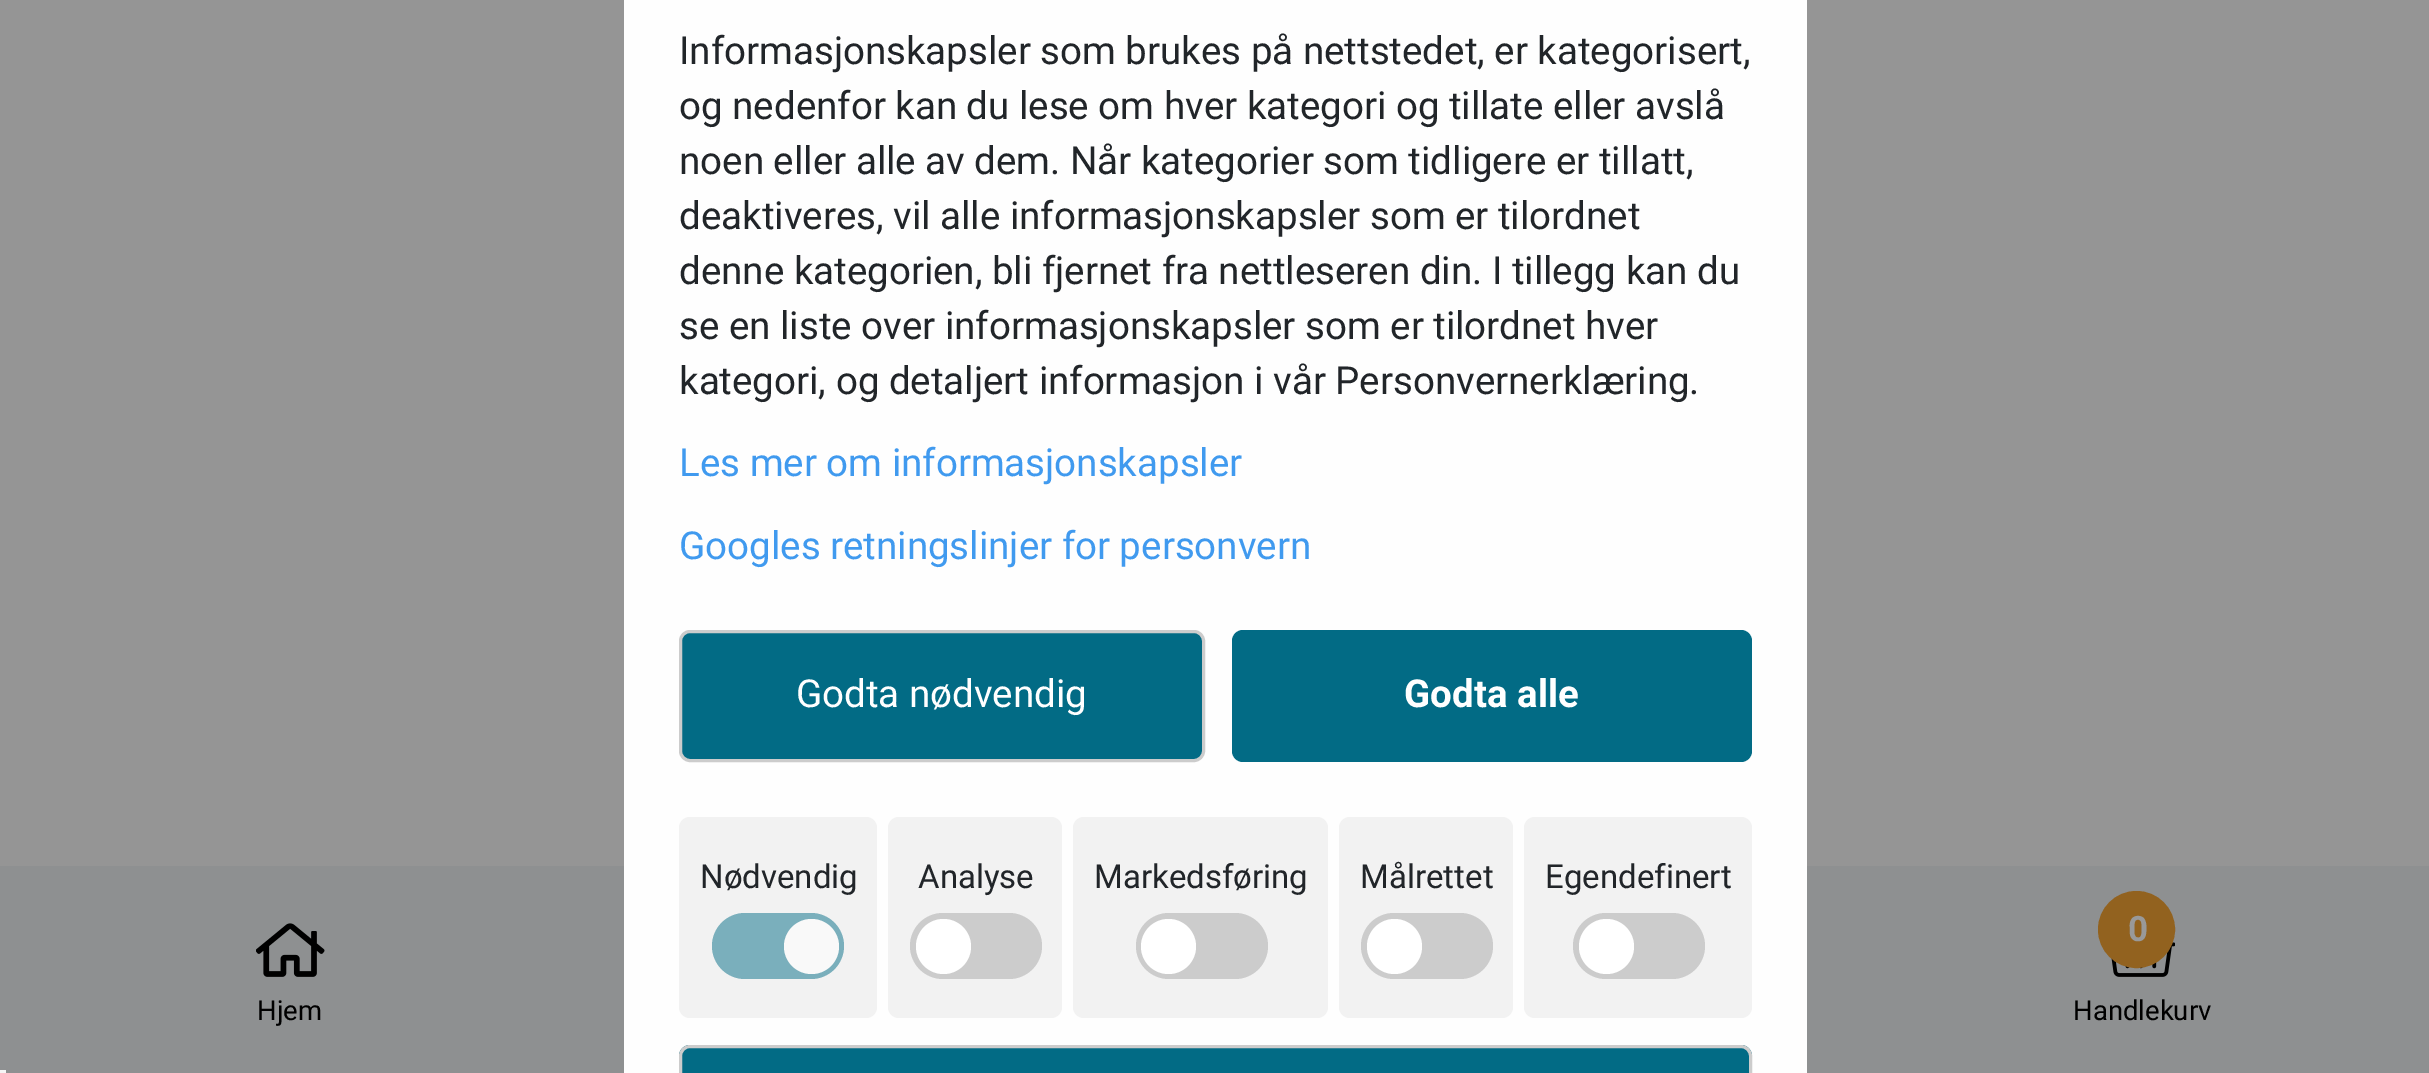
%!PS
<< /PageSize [2429 1073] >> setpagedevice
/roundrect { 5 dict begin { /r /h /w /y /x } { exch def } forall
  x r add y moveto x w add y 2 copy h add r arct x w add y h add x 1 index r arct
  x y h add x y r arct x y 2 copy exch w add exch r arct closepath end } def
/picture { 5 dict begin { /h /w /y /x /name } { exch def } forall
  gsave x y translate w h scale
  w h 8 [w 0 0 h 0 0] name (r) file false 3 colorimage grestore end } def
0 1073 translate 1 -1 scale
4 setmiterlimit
0.584 setgray
0 0 2429 1073 rectfill
0.557 0.565 0.569 setrgbcolor
0 866 2429 207 rectfill
0.996 setgray
newpath 636 -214 moveto 1795 -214 lineto 1801 -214 1807 -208 1807 -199 curveto 1807 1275 lineto 1807 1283 1801 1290 1795 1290 curveto 636 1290 lineto 630 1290 624 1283 624 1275 curveto 624 -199 lineto 624 -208 630 -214 636 -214 curveto closepath fill
/Roboto-Regular [38.5 0 0 -38.5 0 0] selectfont
0.129 0.145 0.161 setrgbcolor
679 64 moveto (Informasjonskapsler som brukes på nettstedet, er kategorisert,) show
679 119 moveto (og nedenfor kan du lese om hver kategori og tillate eller avslå) show
679 174 moveto (noen eller alle av dem. Når kategorier som tidligere er tillatt,) show
679 229 moveto (deaktiveres, vil alle informasjonskapsler som er tilordnet) show
679 284 moveto (denne kategorien, bli fjernet fra nettleseren din. I tillegg kan du) show
679 339 moveto (se en liste over informasjonskapsler som er tilordnet hver) show
679 394 moveto (kategori, og detaljert informasjon i vår Personvernerklæring.) show
0.251 0.604 0.937 setrgbcolor
679 476 moveto (Les mer om informasjonskapsler) show
679 559 moveto (Googles retningslinjer for personvern) show
0.008 0.42 0.522 setrgbcolor
680.5 631.5 523 129 9.5 roundrect gsave fill grestore
0.8 setgray
3 setlinewidth
stroke
1 setgray
796 707 moveto (Godta nødvendig) show
0.008 0.42 0.522 setrgbcolor
1232 630 520 132 11 roundrect fill
/Roboto-Bold [38.5 0 0 -38.5 0 0] selectfont
1 setgray
1404 707 moveto (Godta alle) show
0.949 setgray
679 817 198 201 11 roundrect fill
/Roboto-Regular [33 0 0 -33 0 0] selectfont
0.129 0.145 0.161 setrgbcolor
700 888 moveto (Nødvendig) show
0.478 0.686 0.737 setrgbcolor
712 913 132 66 33 roundrect fill
0.976 setgray
newpath 811.5 946.5 27.5 0 360 arc closepath fill
0.949 setgray
888 817 174 201 11 roundrect fill
0.129 0.145 0.161 setrgbcolor
918 888 moveto (Analyse) show
0.8 setgray
910 913 132 66 33 roundrect fill
1 setgray
newpath 943.5 946.5 27.5 0 360 arc closepath fill
0.949 setgray
1073 817 255 201 11 roundrect fill
0.129 0.145 0.161 setrgbcolor
1094 888 moveto (Markedsføring) show
0.8 setgray
1136 913 132 66 33 roundrect fill
1 setgray
newpath 1168.5 946.5 27.5 0 360 arc closepath fill
0.949 setgray
1339 817 174 201 11 roundrect fill
0.129 0.145 0.161 setrgbcolor
1360 888 moveto (Målrettet) show
0.8 setgray
1361 913 132 66 33 roundrect fill
1 setgray
newpath 1394.5 946.5 27.5 0 360 arc closepath fill
0.949 setgray
1524 817 228 201 11 roundrect fill
0.129 0.145 0.161 setrgbcolor
1545 888 moveto (Egendefinert) show
0.8 setgray
1573 913 132 66 33 roundrect fill
1 setgray
newpath 1606.5 946.5 27.5 0 360 arc closepath fill
0.008 0.42 0.522 setrgbcolor
newpath 690 1045 moveto 1741 1045 lineto 1747 1045 1752 1050 1752 1056 curveto 1752 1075 lineto 679 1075 lineto 679 1056 lineto 679 1050 684 1045 690 1045 curveto closepath fill
0.8 setgray
680.5 1046.5 1070 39 9.5 roundrect stroke
(img1.rgb) 256 923 69 54 picture
/Roboto-Regular [27.5 0 0 -27.5 0 0] selectfont
0 setgray
257 1020 moveto (Hjem) show
(img2.rgb) 2111 942 64 35 picture
0.573 0.384 0.122 setrgbcolor
newpath 2136.5 929.5 35.5 0 360 arc closepath gsave fill grestore
6 setlinewidth
stroke
/Roboto-Bold [35 0 0 -35 0 0] selectfont
0.6 setgray
2128 941 moveto (0) show
/Roboto-Regular [27.5 0 0 -27.5 0 0] selectfont
0 setgray
2073 1020 moveto (Handlekurv) show
0.961 setgray
0 1070 6 3 rectfill
showpage
